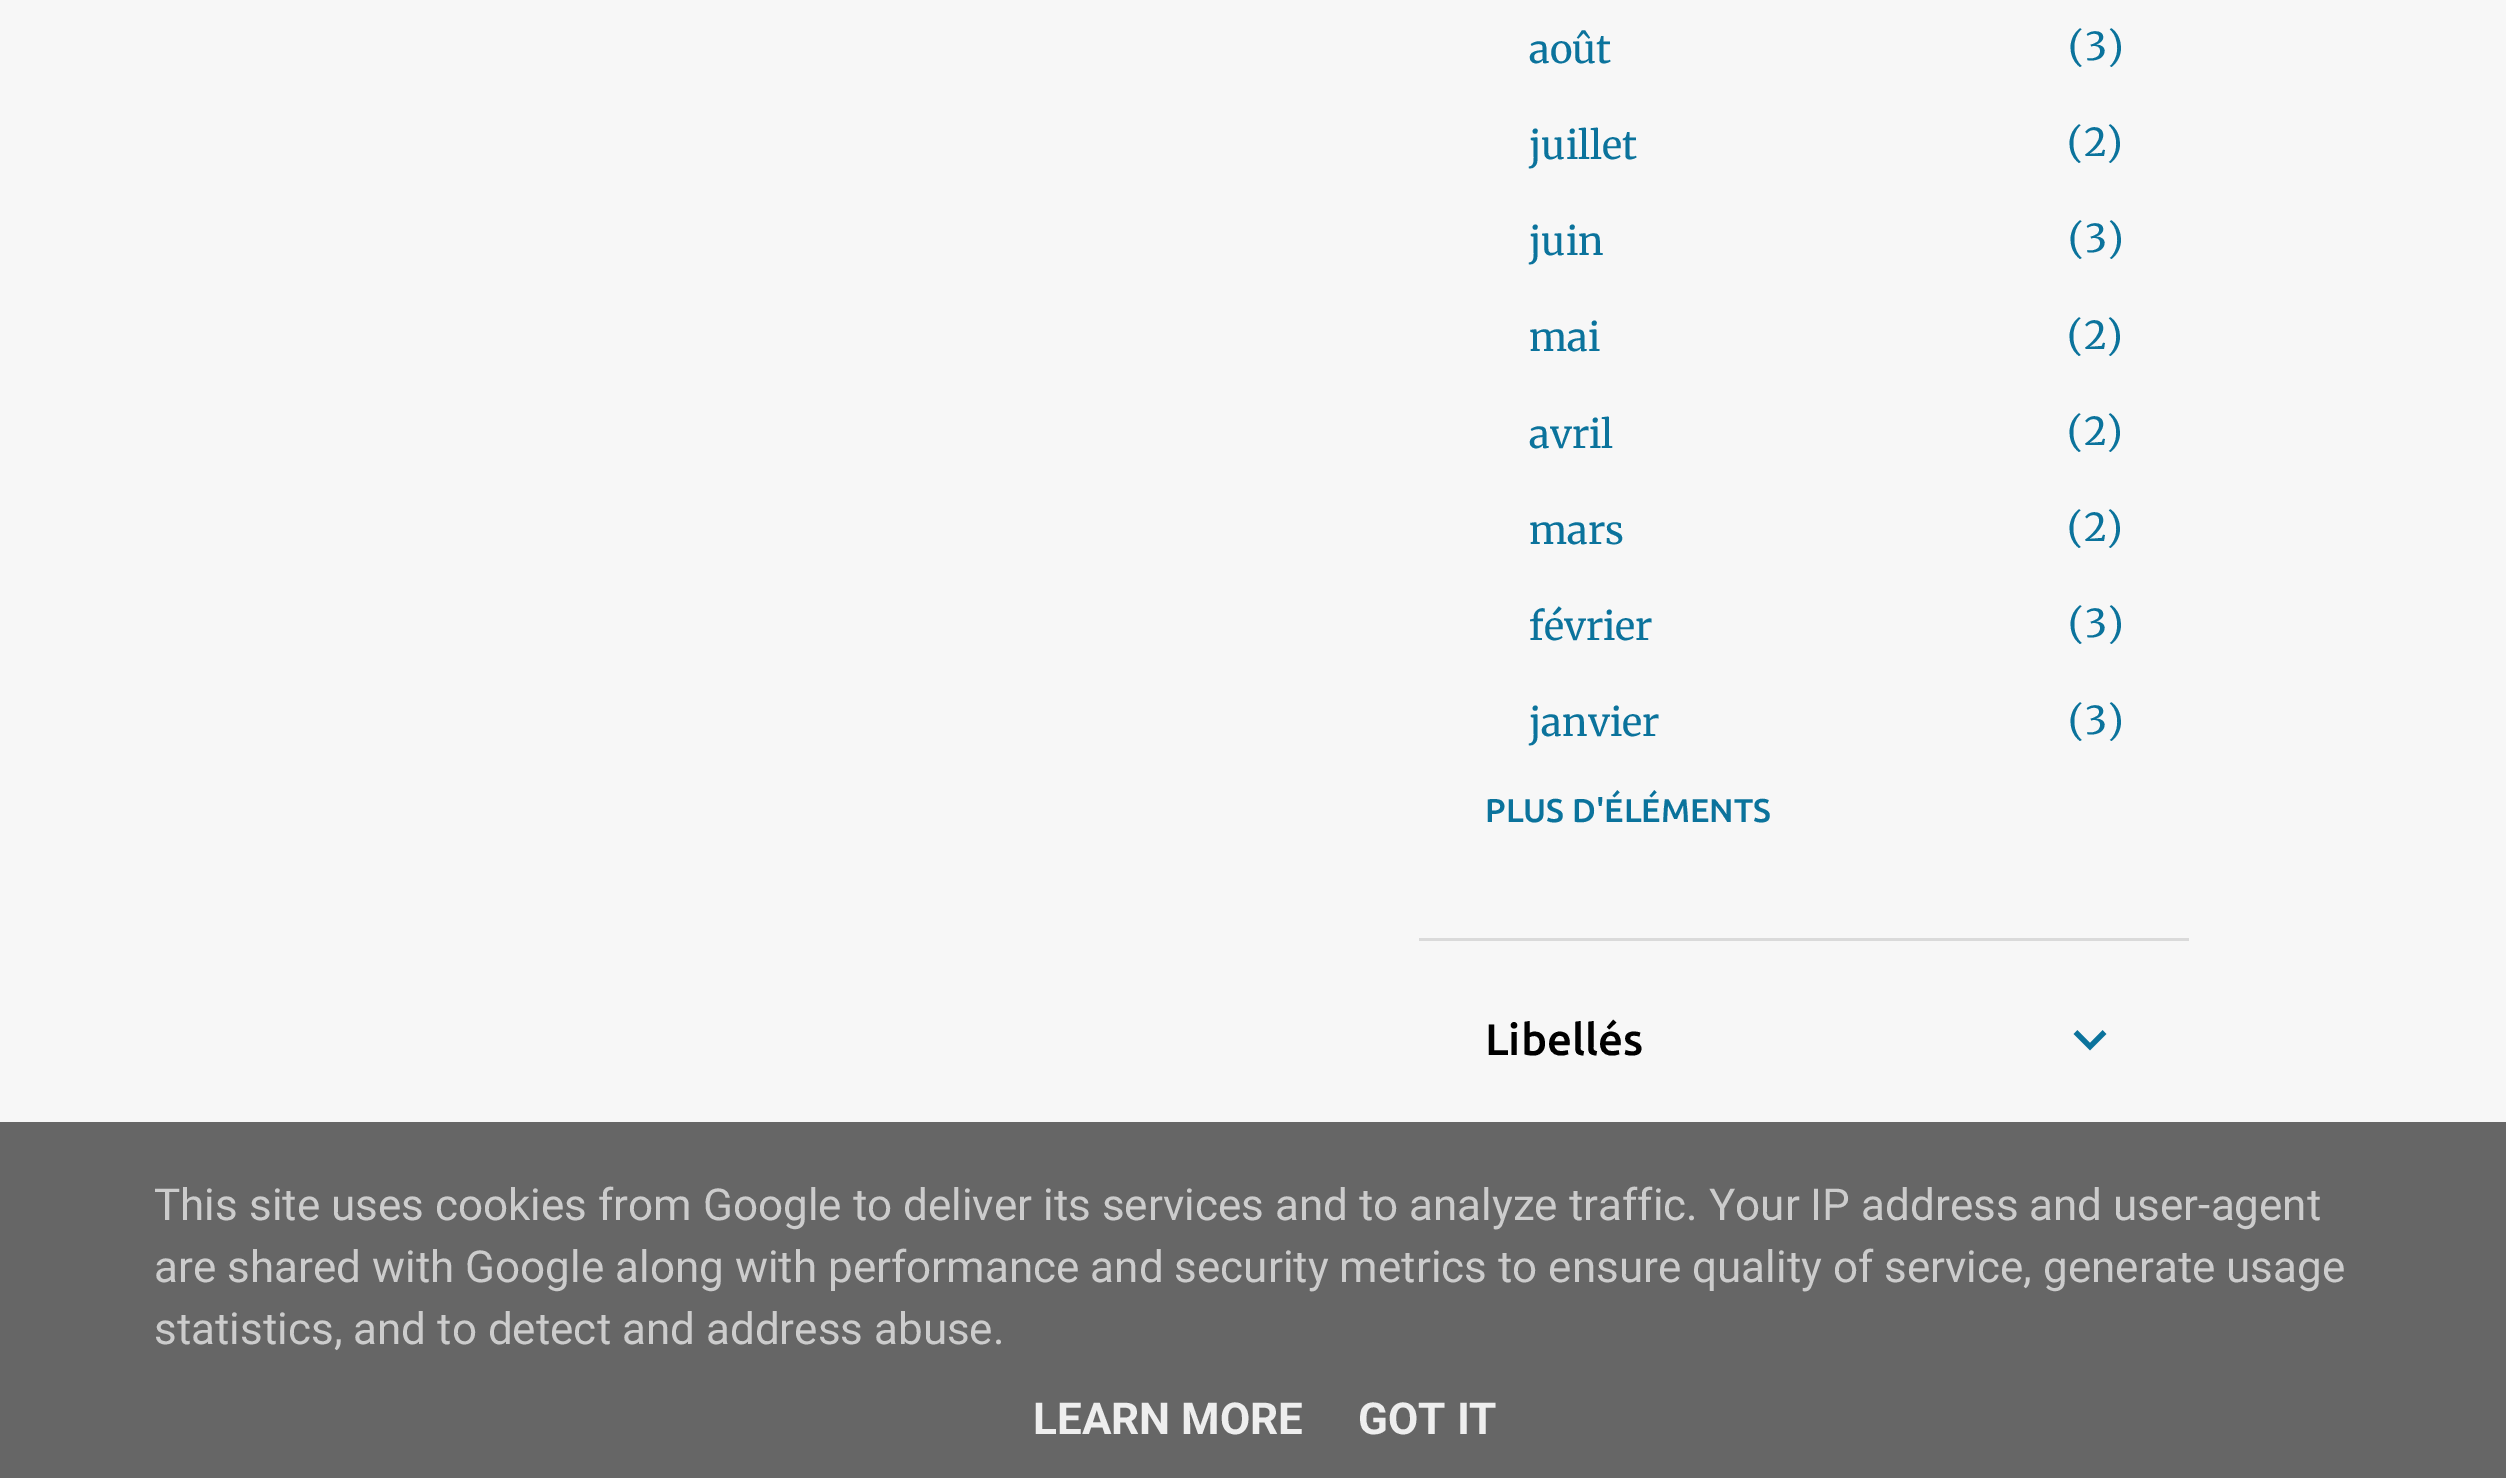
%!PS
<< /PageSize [2506 1478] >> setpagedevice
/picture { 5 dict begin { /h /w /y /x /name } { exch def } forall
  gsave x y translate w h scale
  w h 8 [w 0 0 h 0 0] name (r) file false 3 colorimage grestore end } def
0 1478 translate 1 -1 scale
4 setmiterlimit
0.969 setgray
0 0 2506 1478 rectfill
/Merriweather-Light [38.5 0 0 -38.5 0 0] selectfont
0.043 0.451 0.612 setrgbcolor
1529 63 moveto (août) show
2068 60 moveto (\(3\)) show
1529 159 moveto (juillet) show
2067 156 moveto (\(2\)) show
1529 255 moveto (juin) show
2068 252 moveto (\(3\)) show
1529 351 moveto (mai) show
2067 349 moveto (\(2\)) show
1529 448 moveto (avril) show
2067 445 moveto (\(2\)) show
1529 544 moveto (mars) show
2067 541 moveto (\(2\)) show
1529 640 moveto (février) show
2068 637 moveto (\(3\)) show
1529 736 moveto (janvier) show
2068 734 moveto (\(3\)) show
/Ubuntu-Medium [33 0 0 -33 0 0] selectfont
1485 822 moveto (PLUS D'ÉLÉMENTS) show
0.855 setgray
1419 938 770 3 rectfill
/Ubuntu-Medium [44 0 0 -44 0 0] selectfont
0 setgray
1485 1055 moveto (Libellés) show
(img1.rgb) 2073 1030 34 21 picture
0.4 setgray
0 1122 2506 356 rectfill
/Roboto-Regular [44 0 0 -44 0 0] selectfont
0.8 setgray
154 1220 moveto (This site uses cookies from Google to deliver its services and to analyze traffic. Your IP address and user-agent) show
154 1282 moveto (are shared with Google along with performance and security metrics to ensure quality of service, generate usage) show
154 1344 moveto (statistics, and to detect and address abuse.) show
/Roboto-Bold [44 0 0 -44 0 0] selectfont
0.933 setgray
1033 1434 moveto (LEARN MORE) show
1358 1434 moveto (GOT IT) show
showpage
